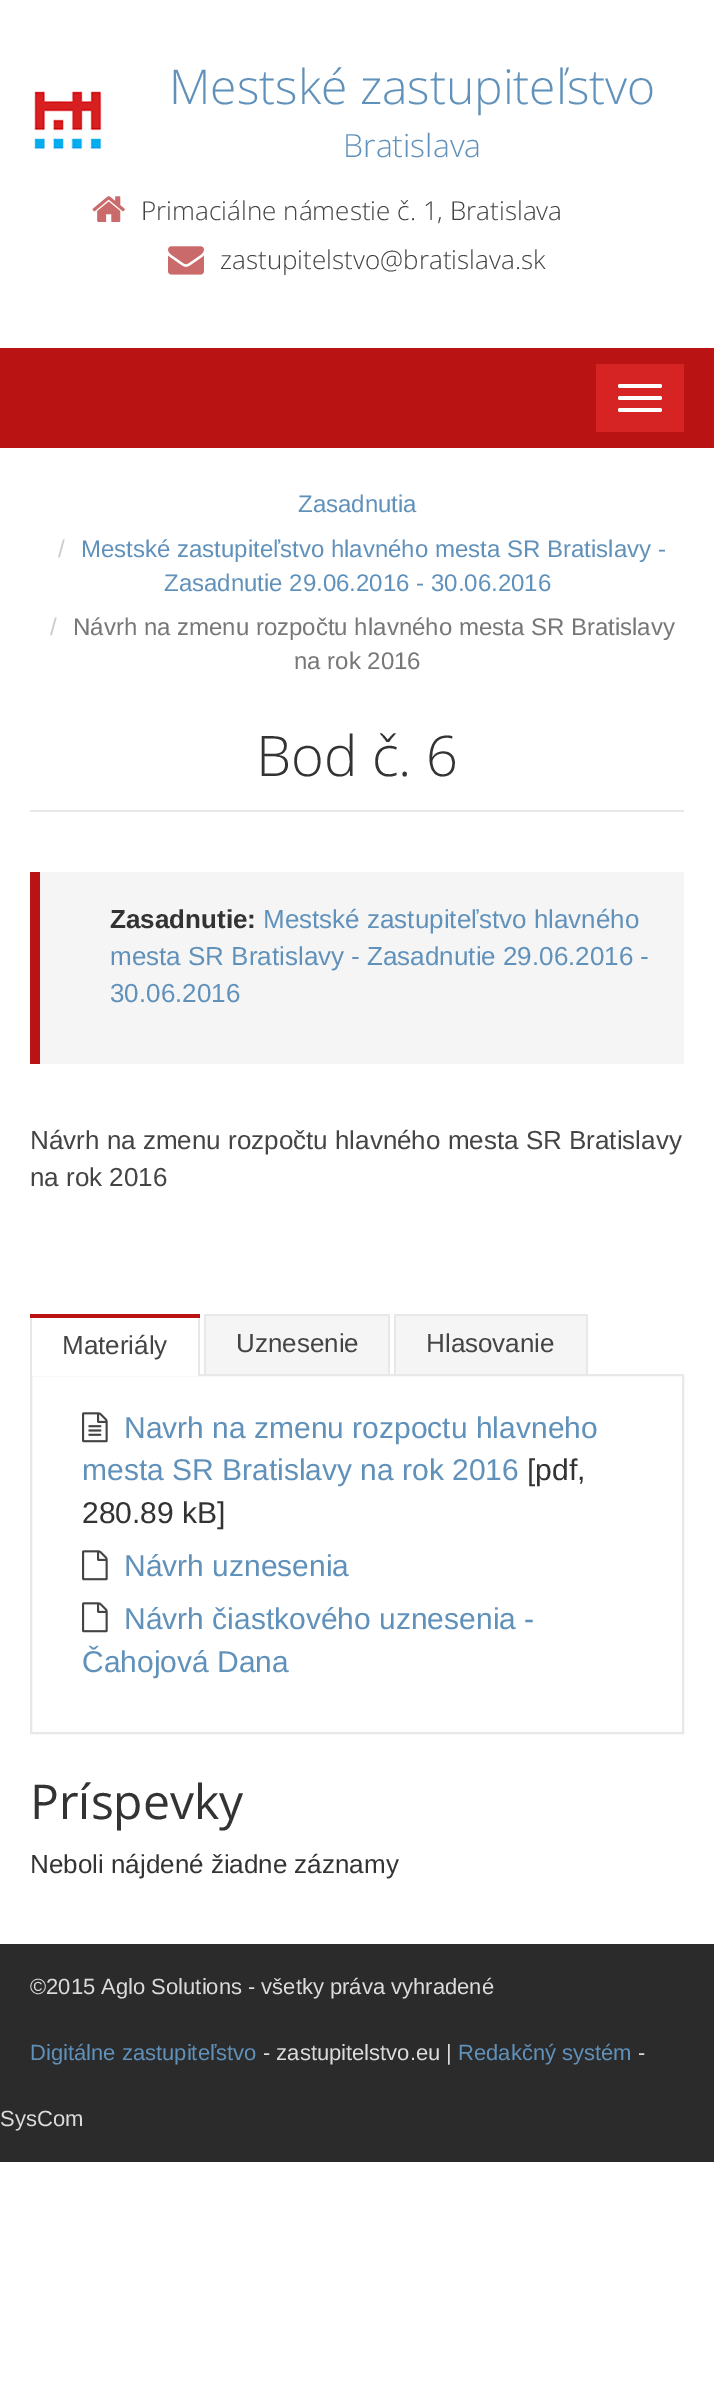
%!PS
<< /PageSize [714 2397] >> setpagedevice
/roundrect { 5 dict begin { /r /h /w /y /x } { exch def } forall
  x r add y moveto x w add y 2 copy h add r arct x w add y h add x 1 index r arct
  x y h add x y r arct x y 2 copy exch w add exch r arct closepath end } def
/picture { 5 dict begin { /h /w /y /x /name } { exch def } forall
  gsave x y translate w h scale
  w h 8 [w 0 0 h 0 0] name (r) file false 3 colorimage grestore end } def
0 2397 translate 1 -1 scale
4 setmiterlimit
1 setgray
0 0 714 2397 rectfill
(img1.rgb) 30 91 72 60 picture
/OpenSans-Light [48 0 0 -48 0 0] selectfont
0.376 0.569 0.729 setrgbcolor
169 104 moveto (Mestské zastupiteľstvo) show
/OpenSans-Light [32 0 0 -32 0 0] selectfont
343 157 moveto (Bratislava) show
(img2.rgb) 92 196 33 26 picture
/OpenSans-Light [26 0 0 -26 0 0] selectfont
0.267 setgray
141 220 moveto (Primaciálne námestie č. 1, Bratislava) show
(img3.rgb) 168 246 36 29 picture
220 269 moveto (zastupitelstvo@bratislava.sk) show
0.725 0.075 0.075 setrgbcolor
0 348 714 100 rectfill
0.839 0.137 0.137 setrgbcolor
596 364 88 68 rectfill
1 setgray
618 384 44 4 2 roundrect fill
618 396 44 4 2 roundrect fill
618 408 44 4 2 roundrect fill
/LiberationSans-Regular [24 0 0 -24 0 0] selectfont
0.376 0.569 0.729 setrgbcolor
298 512 moveto (Zasadnutia) show
0.8 setgray
58 557 moveto (/) show
0.376 0.569 0.729 setrgbcolor
81 557 moveto (Mestské zastupiteľstvo hlavného mesta SR Bratislavy -) show
164 591 moveto (Zasadnutie 29.06.2016 - 30.06.2016) show
0.8 setgray
50 635 moveto (/) show
0.467 setgray
73 635 moveto (Návrh na zmenu rozpočtu hlavného mesta SR Bratislavy) show
294 669 moveto (na rok 2016) show
0.91 setgray
30 810 654 2 rectfill
/OpenSans-Light [56 0 0 -56 0 0] selectfont
0.2 setgray
256 776 moveto (Bod č. 6) show
0.961 setgray
40 872 644 192 rectfill
0.725 0.075 0.075 setrgbcolor
30 872 10 192 rectfill
/LiberationSans-Bold [26 0 0 -26 0 0] selectfont
0.2 setgray
110 928 moveto (Zasadnutie:) show
/LiberationSans-Regular [26 0 0 -26 0 0] selectfont
0.376 0.569 0.729 setrgbcolor
263 928 moveto (Mestské zastupiteľstvo hlavného) show
110 965 moveto (mesta SR Bratislavy - Zasadnutie 29.06.2016 -) show
110 1002 moveto (30.06.2016) show
0.267 setgray
30 1149 moveto (Návrh na zmenu rozpočtu hlavného mesta SR Bratislavy) show
30 1186 moveto (na rok 2016) show
0.725 0.075 0.075 setrgbcolor
30 1314 170 4 rectfill
0.91 setgray
2 setlinewidth
31 1375 652 358 rectstroke
1 setgray
32 1374 166 2 rectfill
0.91 setgray
198 1318 2 58 rectfill
30 1318 2 58 rectfill
0.267 setgray
62 1354 moveto (Materiály) show
0.961 setgray
206 1316 182 58 rectfill
0.91 setgray
204 1314 186 2 rectfill
388 1314 2 60 rectfill
204 1314 2 60 rectfill
0.267 setgray
236 1352 moveto (Uznesenie) show
0.961 setgray
396 1316 190 58 rectfill
0.91 setgray
394 1314 194 2 rectfill
586 1314 2 60 rectfill
394 1314 2 60 rectfill
0.267 setgray
426 1352 moveto (Hlasovanie) show
(img4.rgb) 82 1412 26 31 picture
/LiberationSans-Regular [30 0 0 -30 0 0] selectfont
0.376 0.569 0.729 setrgbcolor
124 1438 moveto (Navrh na zmenu rozpoctu hlavneho) show
82 1480 moveto (mesta SR Bratislavy na rok 2016) show
0.2 setgray
527 1480 moveto ([pdf,) show
82 1523 moveto (280.89 kB]) show
(img5.rgb) 82 1550 26 31 picture
0.376 0.569 0.729 setrgbcolor
124 1576 moveto (Návrh uznesenia) show
(img5.rgb) 82 1602 26 31 picture
124 1629 moveto (Návrh čiastkového uznesenia -) show
82 1672 moveto (Čahojová Dana) show
/OpenSans-Regular [48 0 0 -48 0 0] selectfont
0.2 setgray
30 1819 moveto (Príspevky) show
/LiberationSans-Regular [26 0 0 -26 0 0] selectfont
30 1873 moveto (Neboli nájdené žiadne záznamy) show
0.169 setgray
0 1944 714 218 rectfill
/LiberationSans-Regular [22 0 0 -22 0 0] selectfont
0.863 setgray
30 1994 moveto (©2015 Aglo Solutions - všetky práva vyhradené) show
0.376 0.569 0.729 setrgbcolor
30 2060 moveto (Digitálne zastupiteľstvo) show
0.863 setgray
263 2060 moveto (- zastupitelstvo.eu |) show
0.376 0.569 0.729 setrgbcolor
458 2060 moveto (Redakčný systém) show
0.863 setgray
638 2060 moveto (-) show
0 2126 moveto (SysCom) show
showpage
